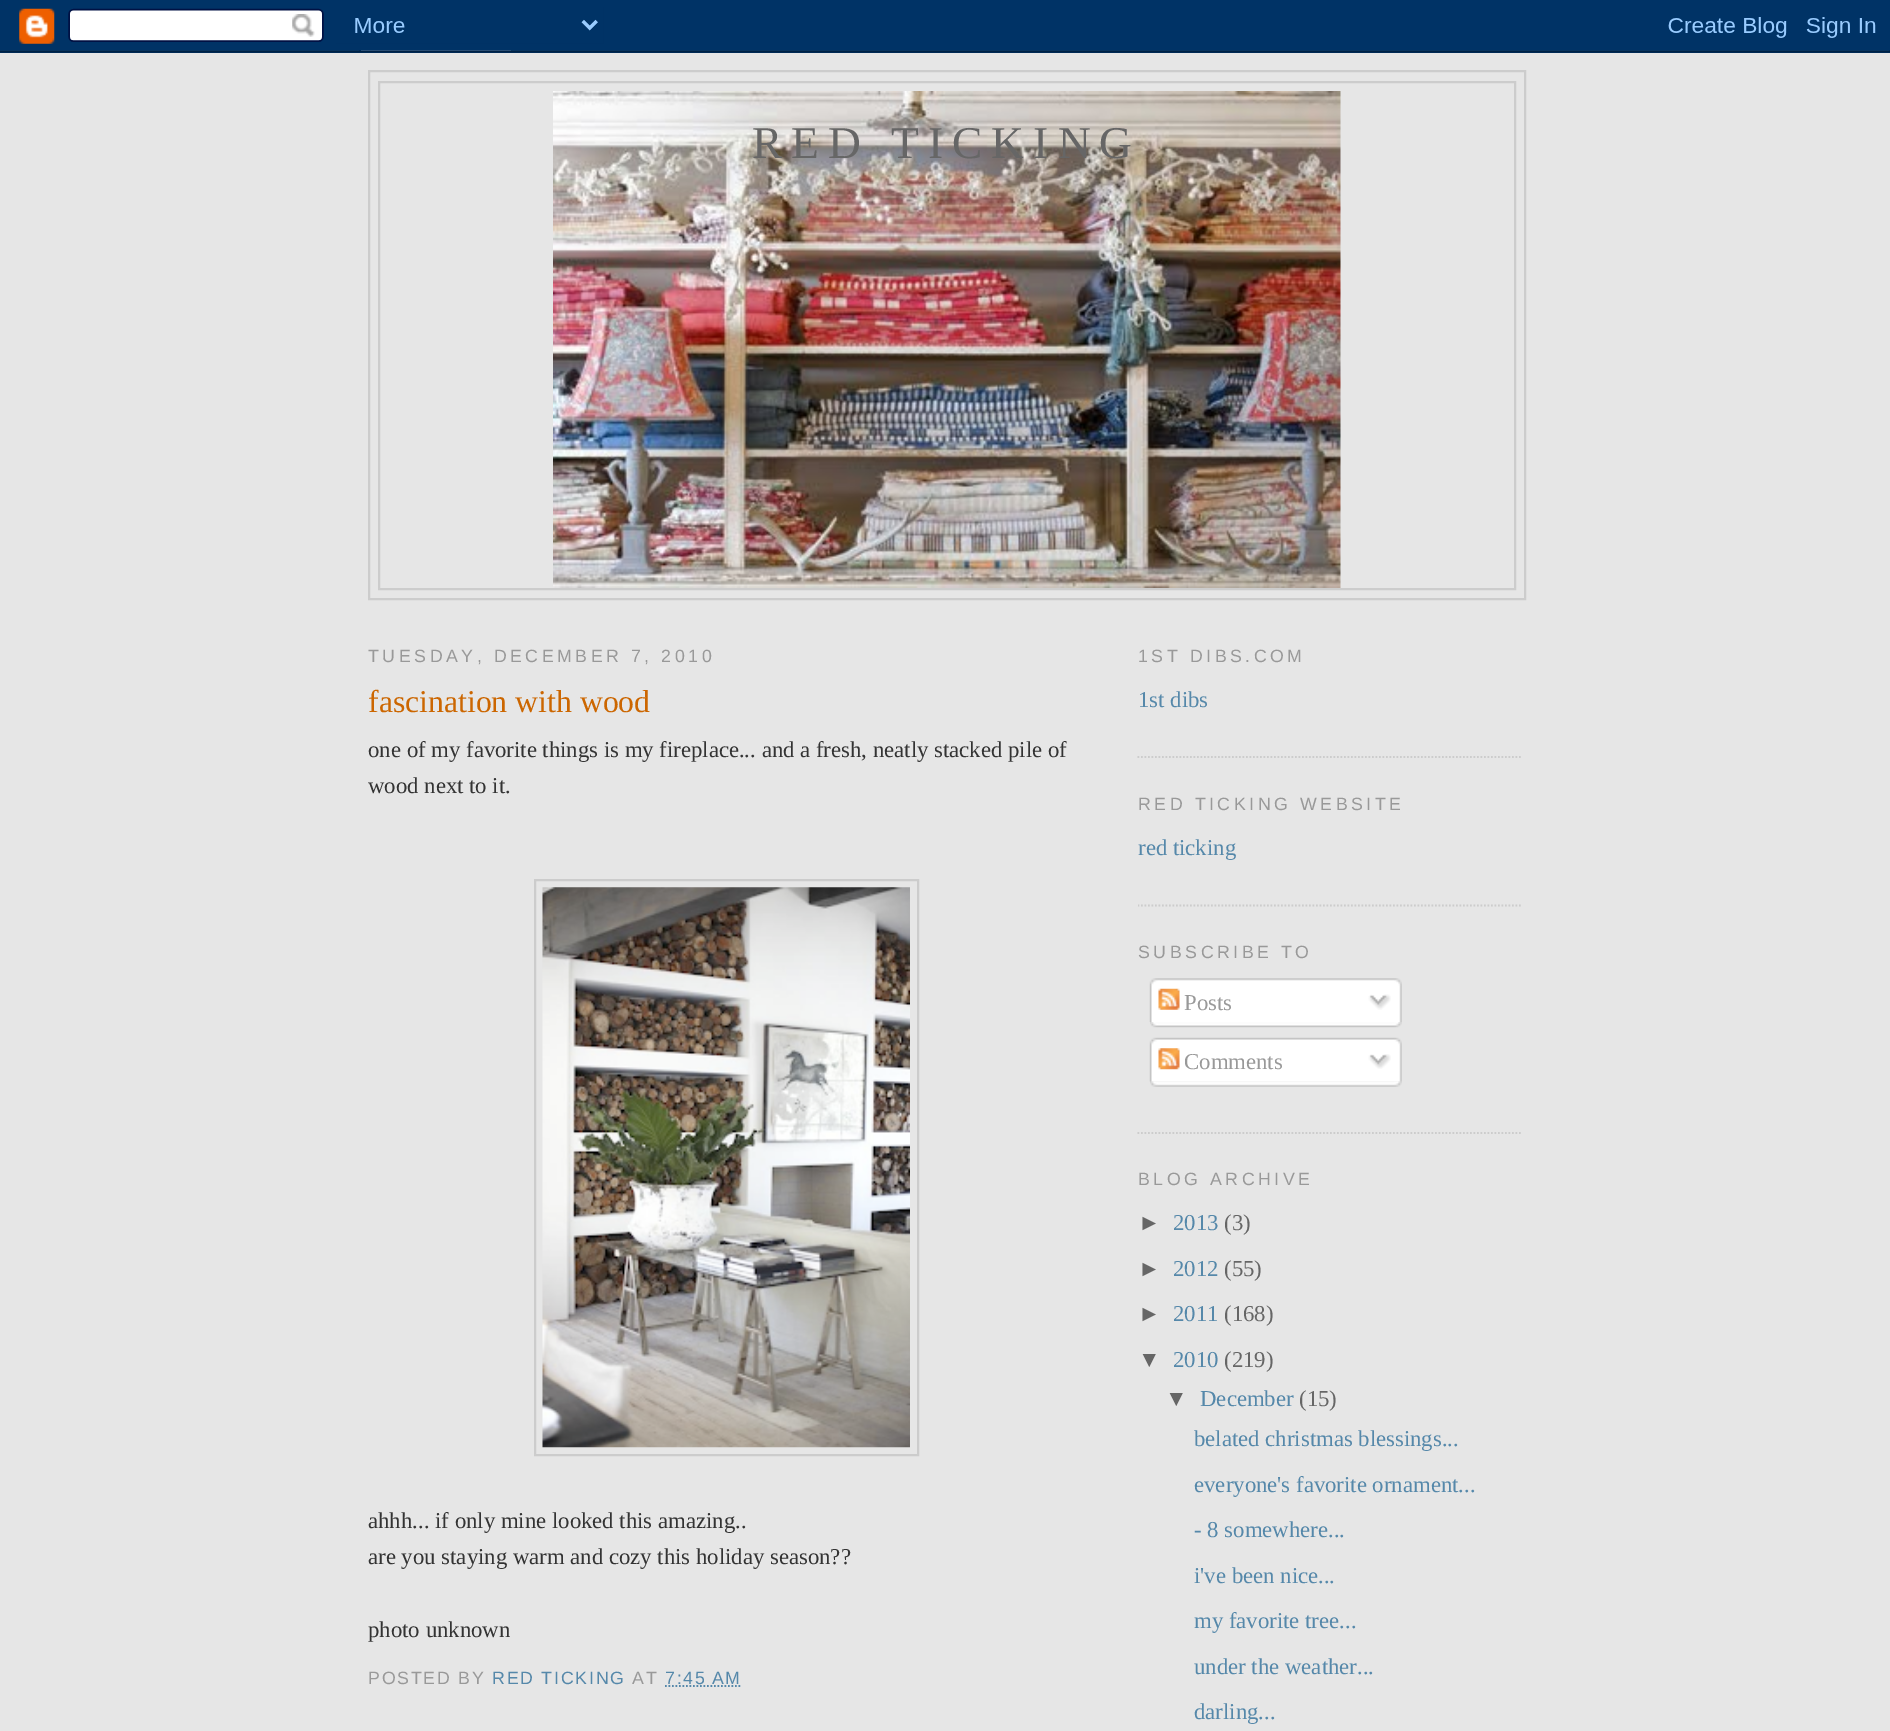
%!PS
<< /PageSize [1890 1731] >> setpagedevice
/picture { 5 dict begin { /h /w /y /x /name } { exch def } forall
  gsave x y translate w h scale
  w h 8 [w 0 0 h 0 0] name (r) file false 3 colorimage grestore end } def
0 1731 translate 1 -1 scale
4 setmiterlimit
0.902 setgray
0 0 1890 1731 rectfill
(img1.rgb) 0 0 1890 53 picture
0.8 setgray
2 setlinewidth
369 71 1156 528 rectstroke
379 82 1136 507 rectstroke
(img2.rgb) 553 91 788 497 picture
/LiberationSerif-Regular [45.5 0 0 -45.5 0 0] selectfont
0.4 setgray
752 158 moveto 9.1 0 (RED TICKING) ashow
/LiberationSans-Regular [17.75 0 0 -17.75 0 0] selectfont
0.6 setgray
368 662 moveto 3.55 0 (TUESDAY, DECEMBER 7, 2010) ashow
/LiberationSerif-Regular [31.75 0 0 -31.75 0 0] selectfont
0.8 0.4 0 setrgbcolor
368 712 moveto (fascination with wood) show
/LiberationSerif-Regular [22.75 0 0 -22.75 0 0] selectfont
0.2 setgray
368 757 moveto (one of my favorite things is my fireplace... and a fresh, neatly stacked pile of) show
368 793 moveto (wood next to it.) show
0.8 setgray
535 880 383 575 rectstroke
(img3.rgb) 542 887 368 561 picture
0.2 setgray
368 1528 moveto (ahhh... if only mine looked this amazing..) show
368 1564 moveto (are you staying warm and cozy this holiday season??) show
368 1637 moveto (photo unknown) show
/LiberationSans-Regular [17.75 0 0 -17.75 0 0] selectfont
0.6 setgray
368 1684 moveto 1.75 0 (POSTED BY) ashow
0.333 0.533 0.667 setrgbcolor
492 1684 moveto 1.75 0 (RED TICKING) ashow
0.6 setgray
632 1684 moveto 1.75 0 (AT) ashow
0.333 0.533 0.667 setrgbcolor
665 1684 moveto 1.75 0 (7:45 AM) ashow
1.8 setlinewidth
[1.75 1.75] 0 setdash
newpath 665 1686 moveto 742 1686 lineto stroke
0.8 setgray
newpath 1137.5 757 moveto 1522.5 757 lineto stroke
0.6 setgray
1138 662 moveto 3.55 0 (1ST DIBS.COM) ashow
/LiberationSerif-Regular [22.75 0 0 -22.75 0 0] selectfont
0.333 0.533 0.667 setrgbcolor
1138 707 moveto (1st dibs) show
gsave
1138 618 385 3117 rectclip
0.8 setgray
newpath 1137.5 905.5 moveto 1522.5 905.5 lineto stroke
grestore
/LiberationSans-Regular [17.75 0 0 -17.75 0 0] selectfont
0.6 setgray
1138 810 moveto 3.55 0 (RED TICKING WEBSITE) ashow
/LiberationSerif-Regular [22.75 0 0 -22.75 0 0] selectfont
0.333 0.533 0.667 setrgbcolor
1138 855 moveto (red ticking) show
0.8 setgray
newpath 1137.5 1133 moveto 1522.5 1133 lineto stroke
/LiberationSans-Regular [17.75 0 0 -17.75 0 0] selectfont
0.6 setgray
1138 958 moveto 3.55 0 (SUBSCRIBE TO) ashow
(img4.rgb) 1149 978 253 44 picture
(img5.rgb) 1158 988 22 22 picture
/LiberationSerif-Regular [22.75 0 0 -22.75 0 0] selectfont
1184 1010 moveto (Posts) show
(img6.rgb) 1368 994 23 16 picture
(img7.rgb) 1150 1022 252 6 picture
(img8.rgb) 1149 1037 253 45 picture
(img9.rgb) 1158 1048 22 22 picture
1184 1069 moveto (Comments) show
(img10.rgb) 1368 1054 23 15 picture
(img11.rgb) 1150 1081 252 6 picture
/LiberationSans-Regular [17.75 0 0 -17.75 0 0] selectfont
1138 1185 moveto 3.55 0 (BLOG ARCHIVE) ashow
/LiberationSans-Regular [22.75 0 0 -22.75 0 0] selectfont
0.4 setgray
1138 1230 moveto (►) show
/LiberationSerif-Regular [22.75 0 0 -22.75 0 0] selectfont
0.333 0.533 0.667 setrgbcolor
1173 1230 moveto (2013) show
0.4 setgray
1224 1230 moveto (\(3\)) show
/LiberationSans-Regular [22.75 0 0 -22.75 0 0] selectfont
1138 1276 moveto (►) show
/LiberationSerif-Regular [22.75 0 0 -22.75 0 0] selectfont
0.333 0.533 0.667 setrgbcolor
1173 1276 moveto (2012) show
0.4 setgray
1224 1276 moveto (\(55\)) show
/LiberationSans-Regular [22.75 0 0 -22.75 0 0] selectfont
1138 1321 moveto (►) show
/LiberationSerif-Regular [22.75 0 0 -22.75 0 0] selectfont
0.333 0.533 0.667 setrgbcolor
1173 1321 moveto (2011) show
0.4 setgray
1224 1321 moveto (\(168\)) show
/LiberationSans-Regular [22.75 0 0 -22.75 0 0] selectfont
1138 1367 moveto (▼) show
/LiberationSerif-Regular [22.75 0 0 -22.75 0 0] selectfont
0.333 0.533 0.667 setrgbcolor
1173 1367 moveto (2010) show
0.4 setgray
1224 1367 moveto (\(219\)) show
/LiberationSans-Regular [22.75 0 0 -22.75 0 0] selectfont
1165 1406 moveto (▼) show
/LiberationSerif-Regular [22.75 0 0 -22.75 0 0] selectfont
0.333 0.533 0.667 setrgbcolor
1200 1406 moveto (December) show
0.4 setgray
1299 1406 moveto (\(15\)) show
0.333 0.533 0.667 setrgbcolor
1194 1446 moveto (belated christmas blessings...) show
1194 1492 moveto (everyone's favorite ornament...) show
1194 1537 moveto (- 8 somewhere...) show
1194 1583 moveto (i've been nice...) show
1194 1628 moveto (my favorite tree...) show
1194 1674 moveto (under the weather...) show
1194 1719 moveto (darling...) show
showpage
